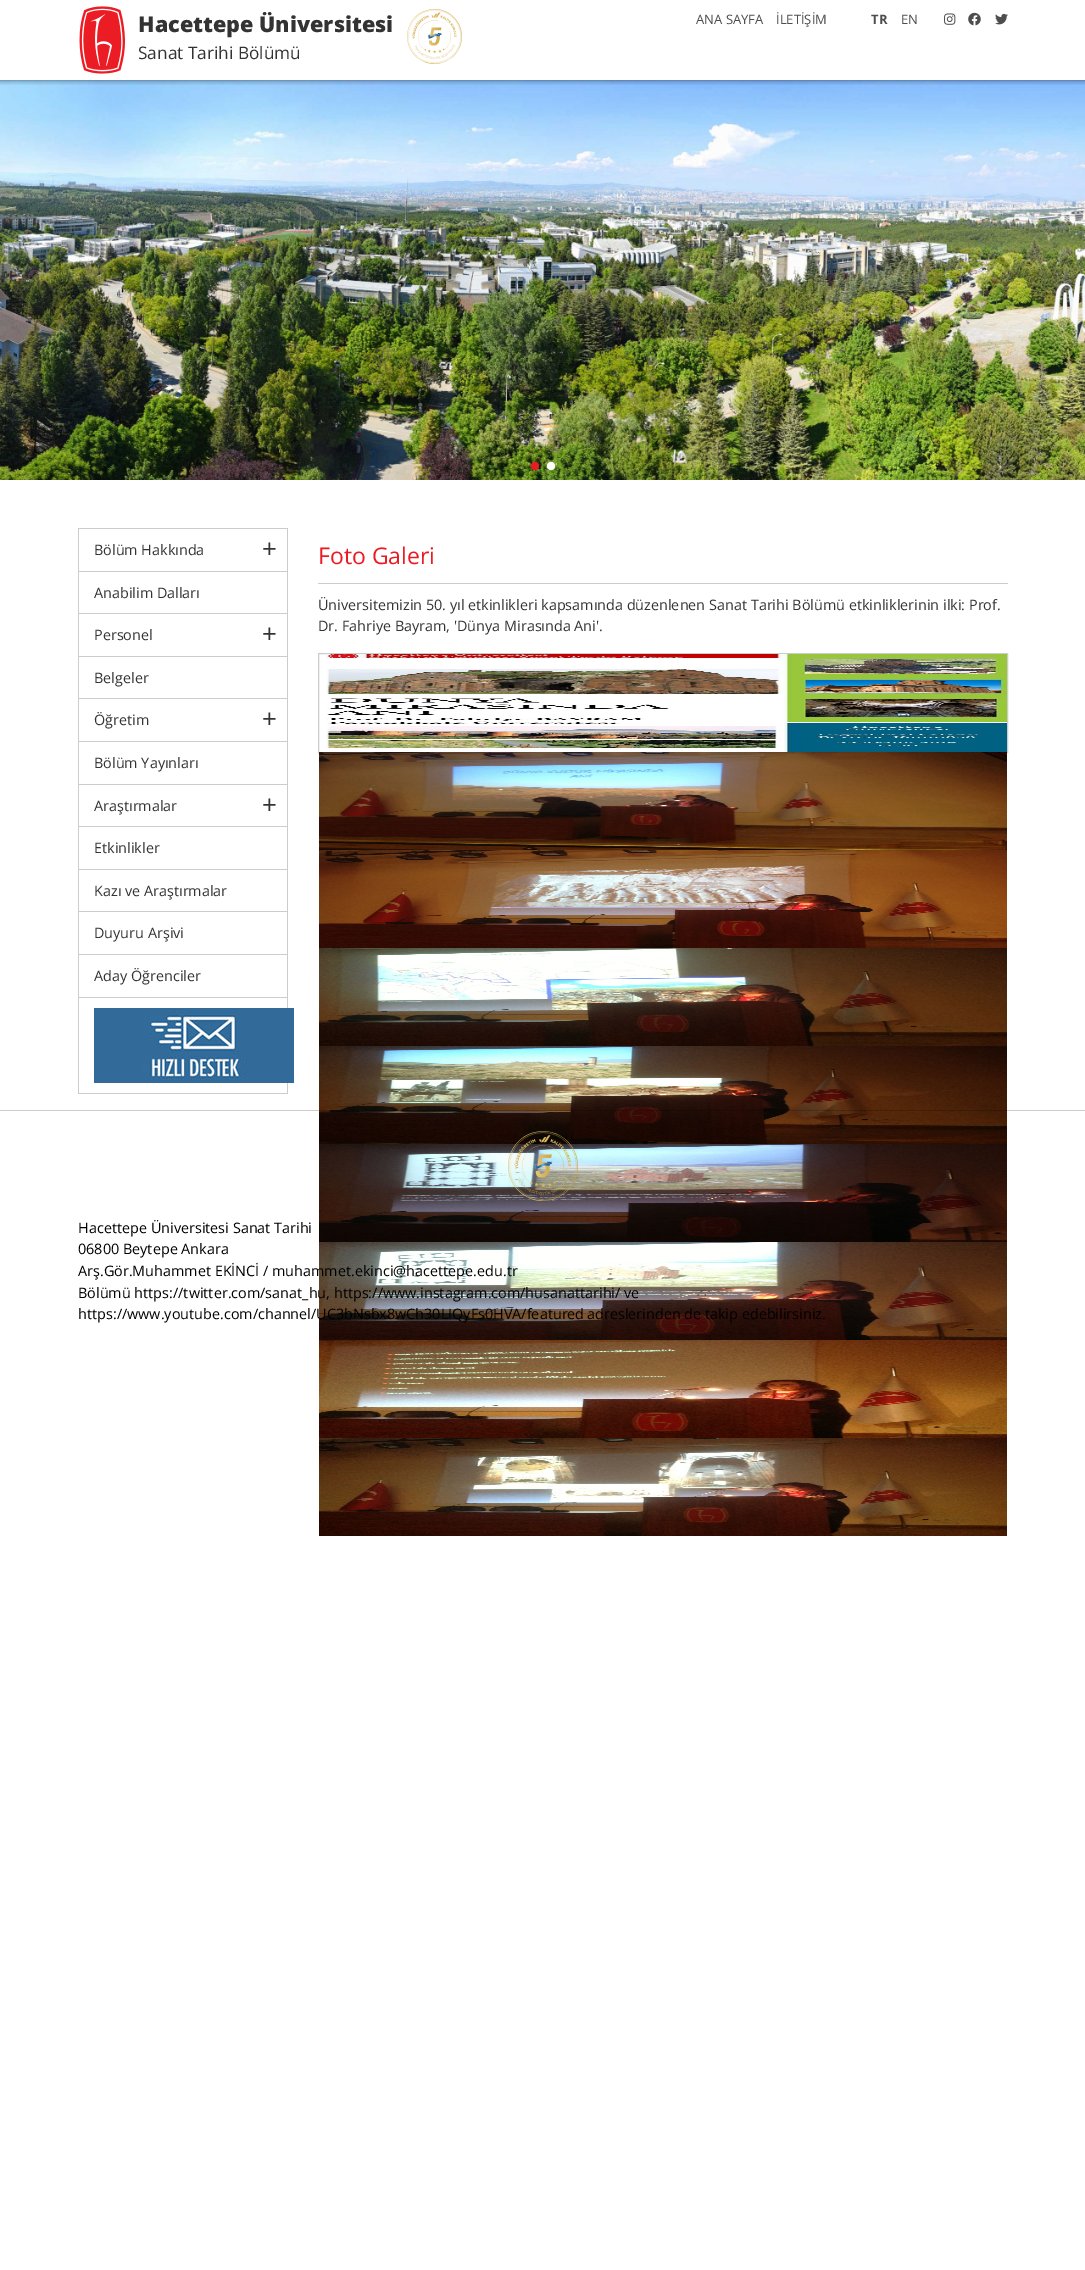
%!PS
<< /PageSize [1085 2270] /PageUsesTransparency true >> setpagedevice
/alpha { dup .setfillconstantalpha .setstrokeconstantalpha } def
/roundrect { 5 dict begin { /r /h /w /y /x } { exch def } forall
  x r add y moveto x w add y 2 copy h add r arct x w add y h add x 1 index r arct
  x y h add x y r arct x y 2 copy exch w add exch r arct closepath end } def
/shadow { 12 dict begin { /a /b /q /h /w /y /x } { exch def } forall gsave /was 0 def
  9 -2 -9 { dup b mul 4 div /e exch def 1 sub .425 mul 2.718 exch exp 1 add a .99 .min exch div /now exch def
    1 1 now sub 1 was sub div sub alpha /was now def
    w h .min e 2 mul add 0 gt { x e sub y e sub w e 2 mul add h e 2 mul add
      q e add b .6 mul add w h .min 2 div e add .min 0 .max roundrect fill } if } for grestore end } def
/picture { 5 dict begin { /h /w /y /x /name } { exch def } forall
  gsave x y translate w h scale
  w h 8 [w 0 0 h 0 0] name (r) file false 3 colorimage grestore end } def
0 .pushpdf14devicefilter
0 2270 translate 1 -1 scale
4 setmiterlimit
1 setgray
0 0 1085 2270 rectfill
(img6.rgb) 0 80 1085 400 picture
gsave
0 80 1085 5 rectclip
0 setgray
0 0 1085 80 0 3 0.6 shadow
grestore
(img1.rgb) 79 6 46 68 picture
(img2.rgb) 407 9 55 55 picture
/OpenSans-ExtraBold [21.6 0 0 -21.6 0 0] selectfont
0.2 setgray
138 32 moveto (Hacettepe Üniversitesi) show
/OpenSans-Regular [17.25 0 0 -17.25 0 0] selectfont
138 59 moveto (Sanat Tarihi Bölümü) show
/OpenSans-Regular [13 0 0 -13 0 0] selectfont
0.302 setgray
696 24 moveto (ANA SAYFA) show
776 24 moveto (İLETİŞİM) show
/OpenSans-Bold [13 0 0 -13 0 0] selectfont
871 24 moveto (TR) show
/OpenSans-Regular [13 0 0 -13 0 0] selectfont
901 24 moveto (EN) show
(img3.rgb) 944 13 12 12 picture
(img4.rgb) 968 12 13 14 picture
(img5.rgb) 995 13 13 12 picture
0.925 0.106 0.137 setrgbcolor
newpath 535 466 4 0 360 arc closepath fill
1 setgray
newpath 551 466 4 0 360 arc closepath fill
0.8 setgray
newpath 78 528 moveto 288 528 lineto 287 529 lineto 79 529 lineto closepath fill
0.2 alpha
0 setgray
newpath 288 528 moveto 288 1094 lineto 287 1094 lineto 287 529 lineto closepath fill
newpath 78 1094 moveto 78 528 lineto 79 529 lineto 79 1094 lineto closepath fill
1 alpha
0.8 setgray
79 571 208 1 rectfill
/OpenSans-Regular [14.4 0 0 -14.4 0 0] selectfont
0.2 setgray
94 555 moveto (Bölüm Hakkında) show
/OpenSans-Regular [26 0 0 -26 0 0] selectfont
262 558 moveto (+) show
0.8 setgray
79 613 208 1 rectfill
/OpenSans-Regular [14.4 0 0 -14.4 0 0] selectfont
0.2 setgray
94 598 moveto (Anabilim Dalları) show
0.8 setgray
79 656 208 1 rectfill
0.2 setgray
94 640 moveto (Personel) show
/OpenSans-Regular [26 0 0 -26 0 0] selectfont
262 643 moveto (+) show
0.8 setgray
79 698 208 1 rectfill
/OpenSans-Regular [14.4 0 0 -14.4 0 0] selectfont
0.2 setgray
94 683 moveto (Belgeler) show
0.8 setgray
79 741 208 1 rectfill
0.2 setgray
94 725 moveto (Öğretim) show
/OpenSans-Regular [26 0 0 -26 0 0] selectfont
262 728 moveto (+) show
0.8 setgray
79 784 208 1 rectfill
/OpenSans-Regular [14.4 0 0 -14.4 0 0] selectfont
0.2 setgray
94 768 moveto (Bölüm Yayınları) show
0.8 setgray
79 826 208 1 rectfill
0.2 setgray
94 811 moveto (Araştırmalar) show
/OpenSans-Regular [26 0 0 -26 0 0] selectfont
262 814 moveto (+) show
0.8 setgray
79 869 208 1 rectfill
/OpenSans-Regular [14.4 0 0 -14.4 0 0] selectfont
0.2 setgray
94 853 moveto (Etkinlikler) show
0.8 setgray
79 911 208 1 rectfill
0.2 setgray
94 896 moveto (Kazı ve Araştırmalar) show
0.8 setgray
79 954 208 1 rectfill
0.2 setgray
94 938 moveto (Duyuru Arşivi) show
0.8 setgray
79 997 208 1 rectfill
0.2 setgray
94 981 moveto (Aday Öğrenciler) show
0.8 setgray
79 1093 208 1 rectfill
(img7.rgb) 94 1008 200 75 picture
318 583 690 1 rectfill
/OpenSans-Regular [23 0 0 -23 0 0] selectfont
0.925 0.106 0.137 setrgbcolor
318 564 moveto (Foto Galeri) show
/OpenSans-Regular [14.4 0 0 -14.4 0 0] selectfont
0.2 setgray
318 610 moveto (Üniversitemizin 50. yıl etkinlikleri kapsamında düzenlenen Sanat Tarihi Bölümü etkinliklerinin ilki: Prof.) show
318 631 moveto (Dr. Fahriye Bayram, 'Dünya Mirasında Ani'.) show
0.8 setgray
318.5 653.5 689 99 rectstroke
(img8.rgb) 326 654 681 98 picture
(img9.rgb) 319 752 688 98 picture
(img10.rgb) 319 850 688 98 picture
(img11.rgb) 319 948 688 98 picture
(img12.rgb) 319 1046 688 98 picture
(img13.rgb) 319 1144 688 98 picture
(img14.rgb) 319 1242 688 98 picture
(img15.rgb) 319 1340 688 98 picture
(img16.rgb) 319 1438 688 98 picture
0.2 alpha
0 setgray
0 1110 1085 1 rectfill
1 alpha
(img17.rgb) 508 1131 70 70 picture
78 1233 moveto (Hacettepe Üniversitesi Sanat Tarihi) show
78 1254 moveto (06800 Beytepe Ankara) show
78 1276 moveto (Arş.Gör.Muhammet EKİNCİ / muhammet.ekinci@hacettepe.edu.tr) show
78 1298 moveto (Bölümü https://twitter.com/sanat_hu, https://www.instagram.com/husanattarihi/ ve) show
78 1319 moveto (https://www.youtube.com/channel/UC3bNsbx8wCh30LIQyFs0HVA/featured) show
587 1319 moveto (adreslerinden de takip edebilirsiniz.) show
.poppdf14devicefilter showpage
